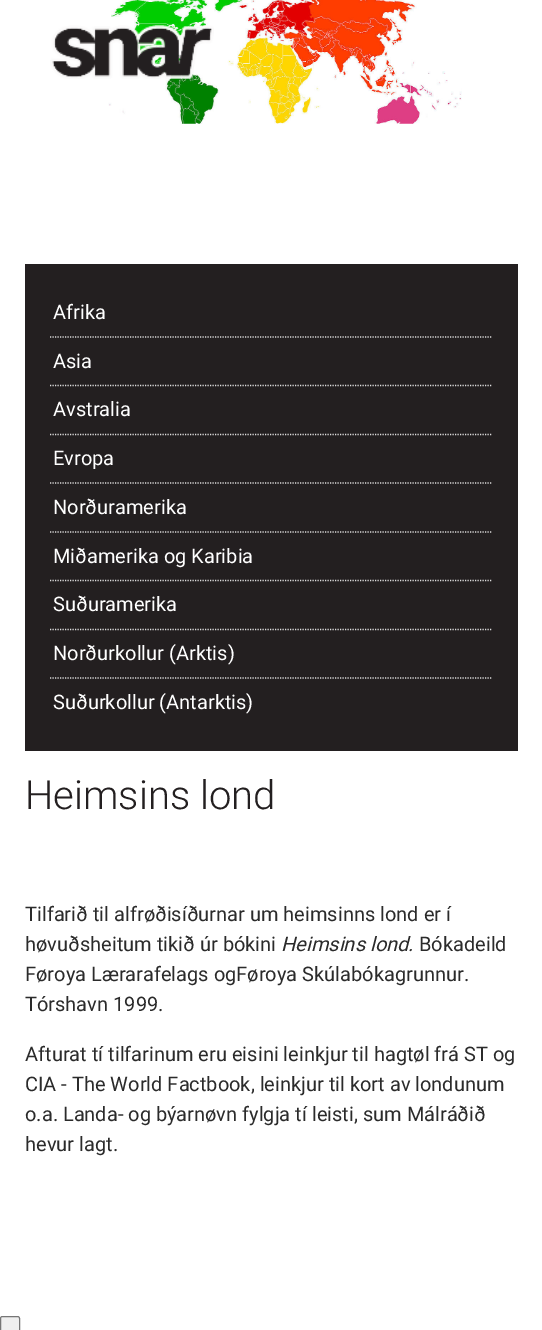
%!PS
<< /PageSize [542 1330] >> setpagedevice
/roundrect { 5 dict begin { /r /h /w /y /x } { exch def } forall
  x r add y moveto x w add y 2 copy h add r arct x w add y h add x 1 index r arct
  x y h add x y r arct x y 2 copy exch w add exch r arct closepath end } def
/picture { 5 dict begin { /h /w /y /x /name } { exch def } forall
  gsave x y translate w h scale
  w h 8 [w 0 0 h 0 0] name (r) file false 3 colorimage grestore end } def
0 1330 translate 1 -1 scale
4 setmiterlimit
1 setgray
0 0 542 1330 rectfill
(img2.rgb) 83 0 379 124 picture
(img1.rgb) 50 25 164 54 picture
0.137 0.122 0.125 setrgbcolor
25 264 493 487 rectfill
0.867 setgray
1.2 setlinewidth
[1.25 1.25] 0 setdash
newpath 50 337 moveto 492.5 337 lineto stroke
/Roboto-Regular [20 0 0 -20 0 0] selectfont
1 setgray
53 319 moveto (Afrika) show
0.867 setgray
newpath 50 385.5 moveto 492.5 385.5 lineto stroke
1 setgray
53 368 moveto (Asia) show
0.867 setgray
newpath 50 434.5 moveto 492.5 434.5 lineto stroke
1 setgray
53 416 moveto (Avstralia) show
0.867 setgray
newpath 50 483 moveto 492.5 483 lineto stroke
1 setgray
53 465 moveto (Evropa) show
0.867 setgray
newpath 50 532 moveto 492.5 532 lineto stroke
1 setgray
53 514 moveto (Norðuramerika) show
0.867 setgray
newpath 50 580.5 moveto 492.5 580.5 lineto stroke
1 setgray
53 563 moveto (Miðamerika og Karibia) show
0.867 setgray
newpath 50 629.5 moveto 492.5 629.5 lineto stroke
1 setgray
53 611 moveto (Suðuramerika) show
0.867 setgray
newpath 50 678 moveto 492.5 678 lineto stroke
1 setgray
53 660 moveto (Norðurkollur \(Arktis\)) show
53 709 moveto (Suðurkollur \(Antarktis\)) show
/Roboto-Light [40 0 0 -40 0 0] selectfont
0.137 0.122 0.125 setrgbcolor
25 809 moveto (Heimsins lond) show
/Roboto-Regular [20 0 0 -20 0 0] selectfont
0.169 setgray
25 921 moveto (Tilfarið til alfrøðisíðurnar um heimsinns lond er í) show
25 951 moveto (høvuðsheitum tikið úr bókini) show
/Roboto-Italic [20 0 0 -20 0 0] selectfont
281 951 moveto (Heimsins lond.) show
/Roboto-Regular [20 0 0 -20 0 0] selectfont
419 951 moveto (Bókadeild) show
25 981 moveto (Føroya Lærarafelags ogFøroya Skúlabókagrunnur.) show
25 1011 moveto (Tórshavn 1999.) show
25 1061 moveto (Afturat tí tilfarinum eru eisini leinkjur til hagtøl frá ST og) show
25 1091 moveto (CIA - The World Factbook, leinkjur til kort av londunum) show
25 1121 moveto (o.a. Landa- og býarnøvn fylgja tí leisti, sum Málráðið) show
25 1151 moveto (hevur lagt.) show
0.937 setgray
0.5 1316.5 19 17 2 roundrect gsave fill grestore
0.463 setgray
1 setlinewidth
[] 0 setdash
stroke
showpage
